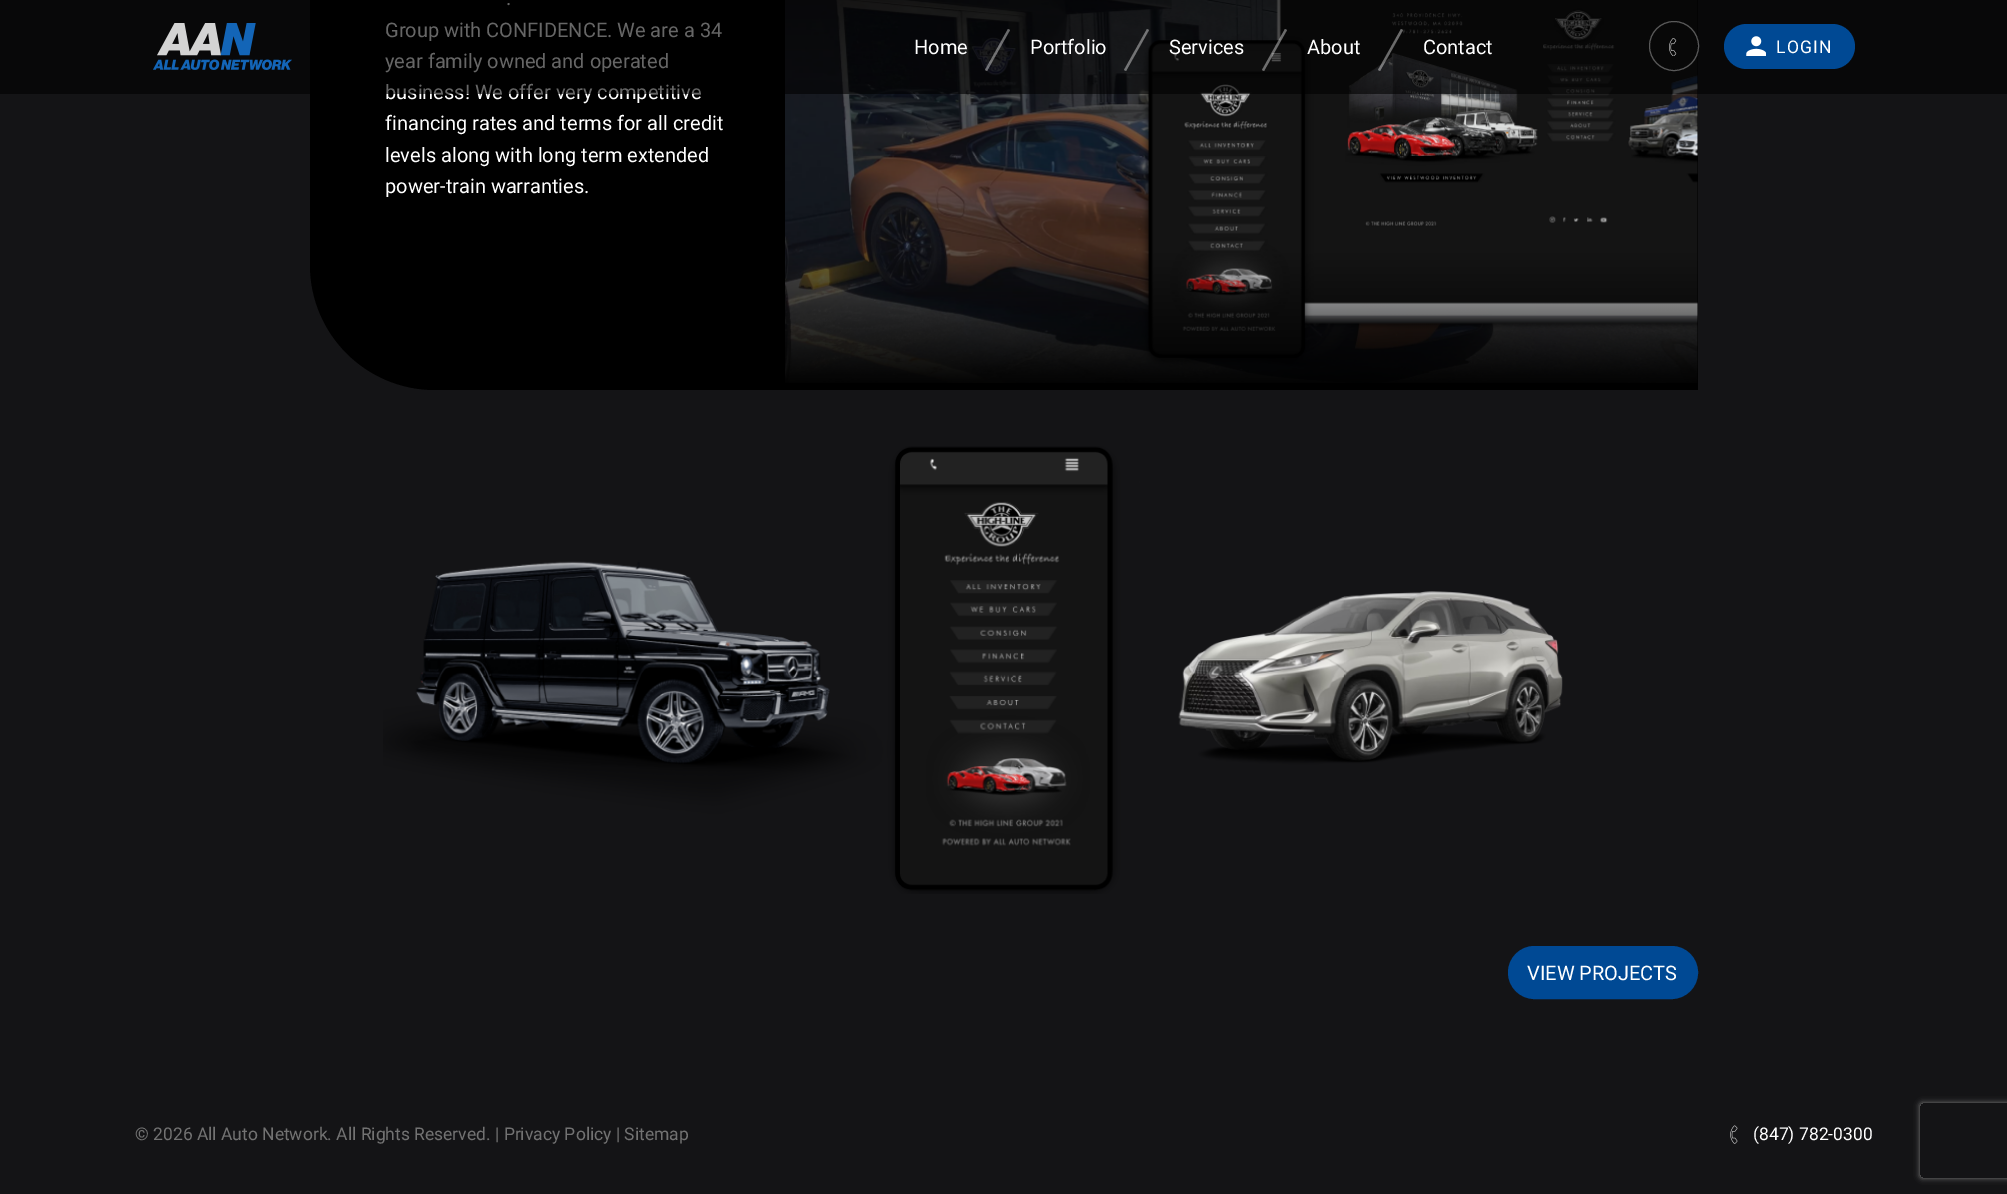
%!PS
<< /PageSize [2007 1194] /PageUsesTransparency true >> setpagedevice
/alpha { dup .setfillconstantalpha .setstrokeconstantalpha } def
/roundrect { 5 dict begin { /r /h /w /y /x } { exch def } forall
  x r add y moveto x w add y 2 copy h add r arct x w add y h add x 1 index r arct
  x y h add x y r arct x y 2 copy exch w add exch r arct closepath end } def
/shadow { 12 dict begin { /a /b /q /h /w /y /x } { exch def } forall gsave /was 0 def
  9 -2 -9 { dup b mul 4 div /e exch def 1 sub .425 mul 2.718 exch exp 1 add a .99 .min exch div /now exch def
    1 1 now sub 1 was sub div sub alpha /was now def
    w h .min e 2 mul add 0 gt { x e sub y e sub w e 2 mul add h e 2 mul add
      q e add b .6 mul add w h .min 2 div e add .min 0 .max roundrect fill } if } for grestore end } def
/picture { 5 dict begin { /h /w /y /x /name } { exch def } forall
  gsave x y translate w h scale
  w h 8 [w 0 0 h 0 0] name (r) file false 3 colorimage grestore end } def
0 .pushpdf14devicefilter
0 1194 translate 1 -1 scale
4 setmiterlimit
0.078 0.078 0.086 setrgbcolor
0 0 2007 1194 rectfill
0 setgray
newpath 310 -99 moveto 1698 -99 lineto 1698 390 lineto 435 390 lineto 366 390 310 334 310 265 curveto closepath fill
/Roboto-Regular [20 0 0 -20 0 0] selectfont
1 setgray
506 5 moveto (.) show
385 37 moveto (Group with CONFIDENCE. We are a 34) show
385 68 moveto (year family owned and operated) show
385 99 moveto (business! We offer very competitive) show
385 130 moveto (financing rates and terms for all credit) show
385 162 moveto (levels along with long term extended) show
385 193 moveto (power-train warranties.) show
(img1.rgb) 785 0 913 383 picture
(img2.rgb) 383 446 1180 448 picture
0 0.286 0.58 setrgbcolor
1509.5 947.5 187 50 25 roundrect gsave fill grestore
3 setlinewidth
stroke
1 setgray
1527 980 moveto (VIEW PROJECTS) show
/Roboto-Regular [17.5 0 0 -17.5 0 0] selectfont
0.447 setgray
135 1140 moveto (© 2026 All Auto Network. All Rights Reserved. | Privacy Policy | Sitemap) show
(img3.rgb) 1730 1125 8 19 picture
1 setgray
1753 1140 moveto (\(847\) 782-0300) show
0.6 alpha
0 setgray
0 0 2007 94 rectfill
1 alpha
(img4.rgb) 153 23 139 47 picture
/Roboto-Regular [20 0 0 -20 0 0] selectfont
1 setgray
914 54 moveto (Home) show
0.4 alpha
newpath 1008 29 moveto 1010 30 lineto 987 71 lineto 985 70 lineto closepath fill
1 alpha
1030 54 moveto (Portfolio) show
0.4 alpha
newpath 1147 29 moveto 1149 30 lineto 1126 71 lineto 1124 70 lineto closepath fill
1 alpha
1169 54 moveto (Services) show
0.4 alpha
newpath 1285 29 moveto 1287 30 lineto 1264 71 lineto 1262 70 lineto closepath fill
1 alpha
1307 54 moveto (About) show
0.4 alpha
newpath 1401 29 moveto 1403 30 lineto 1380 71 lineto 1378 70 lineto closepath fill
1 alpha
1423 54 moveto (Contact) show
0.4 alpha
0.827 setgray
1 setlinewidth
newpath 1674 46 24.5 0 360 arc closepath stroke
1 alpha
(img5.rgb) 1669 38 8 18 picture
0 0.286 0.58 setrgbcolor
1724 24 131 45 22.5 roundrect fill
(img6.rgb) 1746 36 20 20 picture
/Roboto-Regular [17.5 0 0 -17.5 0 0] selectfont
1 setgray
1776 53 moveto 1.25 0 (LOGIN) ashow
gsave
newpath 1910 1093 moveto 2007 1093 lineto 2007 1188 lineto 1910 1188 lineto closepath 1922.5 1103 moveto 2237.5 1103 lineto 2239 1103 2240 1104 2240 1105.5 curveto 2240 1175.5 lineto 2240 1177 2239 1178 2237.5 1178 curveto 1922.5 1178 lineto 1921 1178 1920 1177 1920 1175.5 curveto 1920 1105.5 lineto 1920 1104 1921 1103 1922.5 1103 curveto closepath eoclip newpath
0.502 setgray
1920 1103 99 75 2.5 3 1 shadow
grestore
.poppdf14devicefilter showpage
